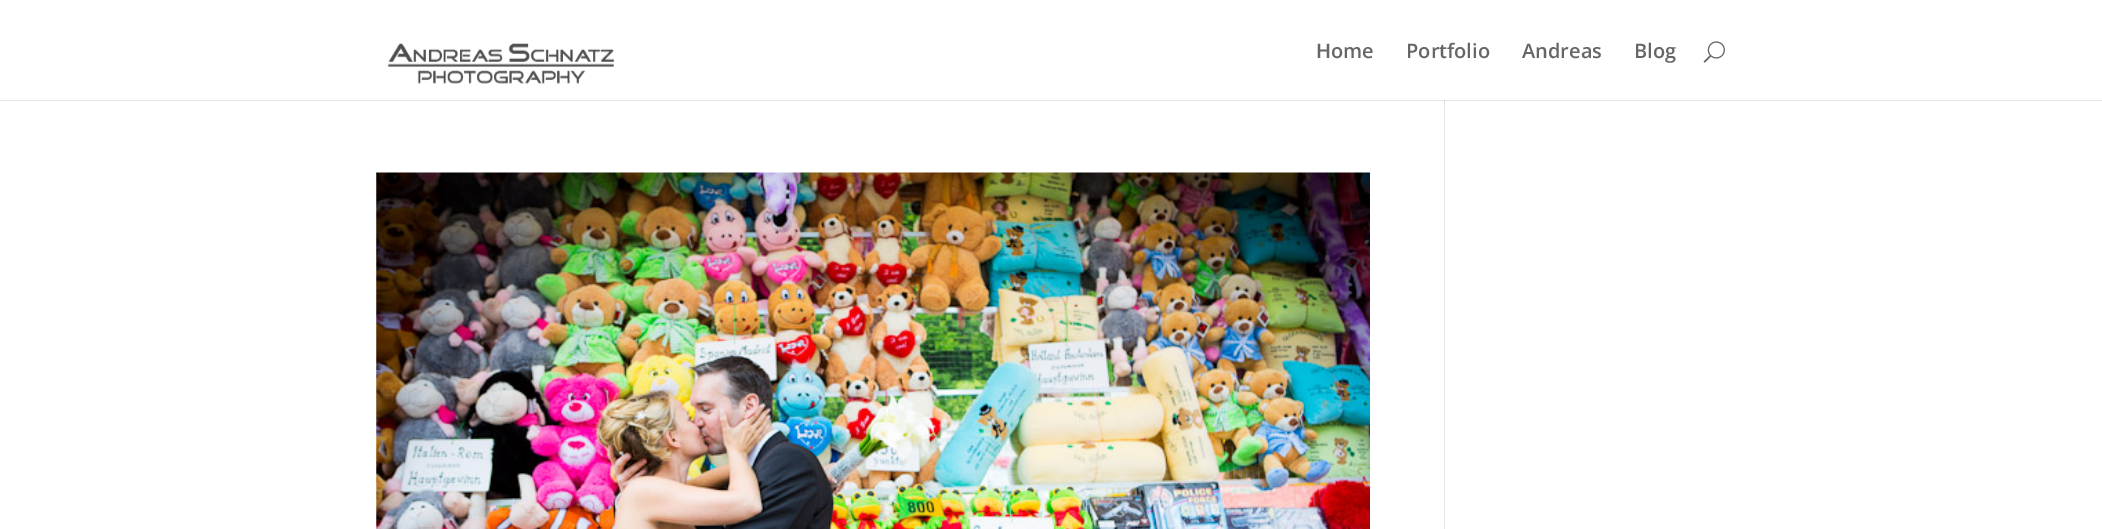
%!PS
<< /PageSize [2102 529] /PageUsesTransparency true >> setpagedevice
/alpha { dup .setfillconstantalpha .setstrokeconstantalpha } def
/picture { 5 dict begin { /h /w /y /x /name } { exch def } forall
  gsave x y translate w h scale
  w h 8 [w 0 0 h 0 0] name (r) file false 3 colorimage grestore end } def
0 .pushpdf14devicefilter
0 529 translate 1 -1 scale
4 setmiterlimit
1 setgray
0 0 2102 529 rectfill
0.886 setgray
1444 100 1 429 rectfill
0.1 alpha
0 setgray
newpath 0 100 moveto 0 101 lineto 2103 101 lineto 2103 1 lineto 2102 1 lineto 2102 100 lineto closepath fill
1 alpha
(img1.rgb) 387 43 227 41 picture
/OpenSans-SemiBold [20 0 0 -20 0 0] selectfont
0.4 setgray
1316 58 moveto (Home) show
1406 58 moveto (Portfolio) show
1522 58 moveto (Andreas) show
1634 58 moveto (Blog) show
(img2.rgb) 1703 41 22 22 picture
(img3.rgb) 376 172 994 357 picture
.poppdf14devicefilter showpage
